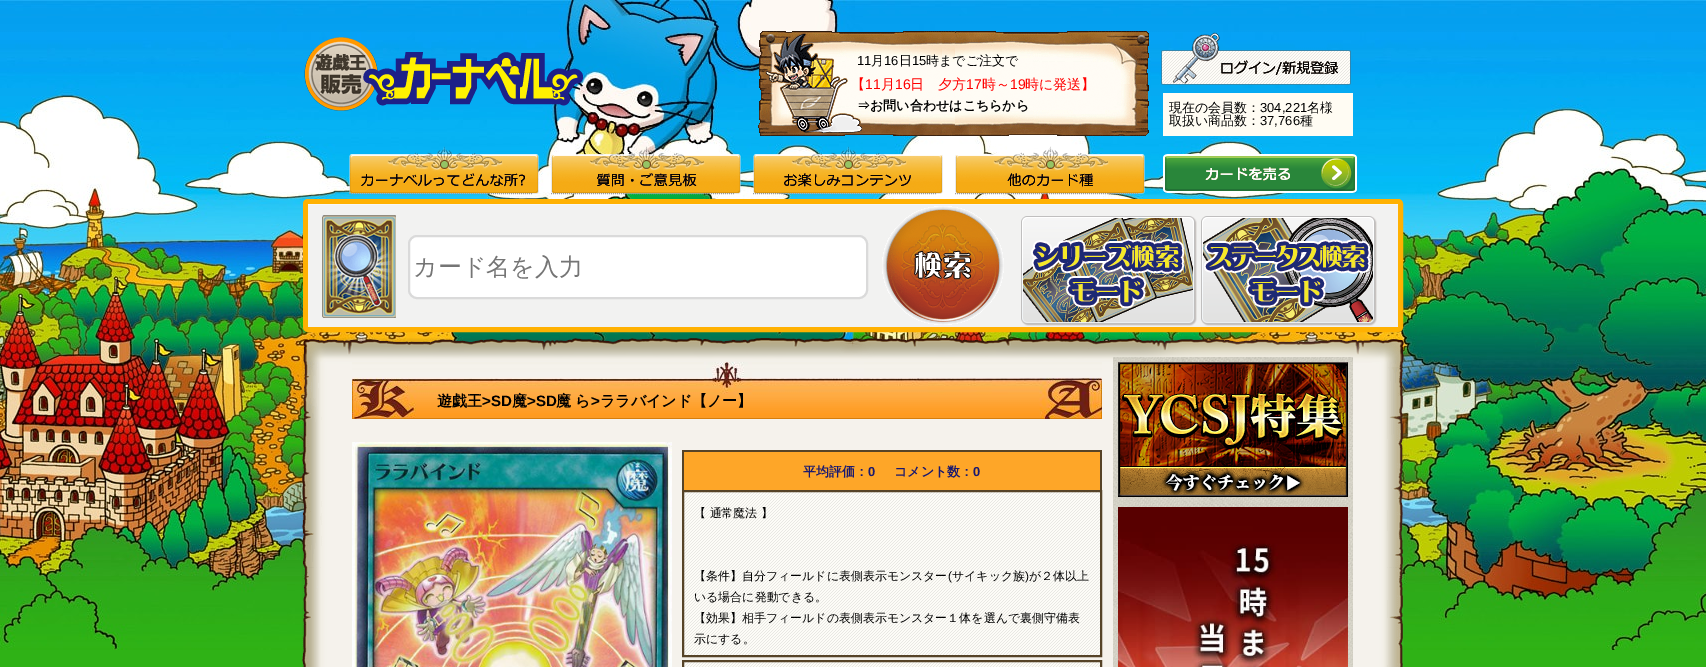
%!PS
<< /PageSize [1706 667] >> setpagedevice
/roundrect { 5 dict begin { /r /h /w /y /x } { exch def } forall
  x r add y moveto x w add y 2 copy h add r arct x w add y h add x 1 index r arct
  x y h add x y r arct x y 2 copy exch w add exch r arct closepath end } def
/picture { 5 dict begin { /h /w /y /x /name } { exch def } forall
  gsave x y translate w h scale
  w h 8 [w 0 0 h 0 0] name (r) file false 3 colorimage grestore end } def
0 667 translate 1 -1 scale
4 setmiterlimit
0.184 0.698 0.086 setrgbcolor
0 0 1706 667 rectfill
(img1.rgb) 0 0 1706 650 picture
(img2.rgb) 304 37 279 74 picture
(img3.rgb) 758 31 391 105 picture
/LiberationSans-Regular [13 0 0 -13 0 0] selectfont
0 setgray
857 65 moveto (11) show
/WenQuanYiZenHei-Medium [13 0 0 -13 0 0] selectfont
871 65 moveto (月) show
/LiberationSans-Regular [13 0 0 -13 0 0] selectfont
884 65 moveto (16) show
/WenQuanYiZenHei-Medium [13 0 0 -13 0 0] selectfont
899 65 moveto (日) show
/LiberationSans-Regular [13 0 0 -13 0 0] selectfont
912 65 moveto (15) show
/WenQuanYiZenHei-Medium [13 0 0 -13 0 0] selectfont
926 65 moveto (時までご注文で) show
/WenQuanYiZenHei-Medium [14 0 0 -14 0 0] selectfont
1 0 0 setrgbcolor
851 89 moveto (【) show
/LiberationSans-Regular [14 0 0 -14 0 0] selectfont
865 89 moveto (11) show
/WenQuanYiZenHei-Medium [14 0 0 -14 0 0] selectfont
881 89 moveto (月) show
/LiberationSans-Regular [14 0 0 -14 0 0] selectfont
895 89 moveto (16) show
/WenQuanYiZenHei-Medium [14 0 0 -14 0 0] selectfont
910 89 moveto (日　夕方) show
/LiberationSans-Regular [14 0 0 -14 0 0] selectfont
966 89 moveto (17) show
/WenQuanYiZenHei-Medium [14 0 0 -14 0 0] selectfont
982 89 moveto (時～) show
/LiberationSans-Regular [14 0 0 -14 0 0] selectfont
1010 89 moveto (19) show
/WenQuanYiZenHei-Medium [14 0 0 -14 0 0] selectfont
1025 89 moveto (時に発送】) show
/WenQuanYiZenHei-Bold [13 0 0 -13 0 0] selectfont
0 setgray
857 110 moveto (⇒お問い合わせはこちらから) show
(img4.rgb) 1161 32 190 53 picture
1 0.988 0.953 setrgbcolor
1163 93 190 43 rectfill
/WenQuanYiZenHei-Medium [13 0 0 -13 0 0] selectfont
0 setgray
1169 112 moveto (現在の会員数：) show
/LiberationSans-Regular [13 0 0 -13 0 0] selectfont
1260 112 moveto (304,221) show
/WenQuanYiZenHei-Medium [13 0 0 -13 0 0] selectfont
1307 112 moveto (名様) show
1169 125 moveto (取扱い商品数：) show
/LiberationSans-Regular [13 0 0 -13 0 0] selectfont
1260 125 moveto (37,766) show
/WenQuanYiZenHei-Medium [13 0 0 -13 0 0] selectfont
1300 125 moveto (種) show
(img5.rgb) 349 146 190 48 picture
0.6 setgray
[1 1] 0 setdash
newpath 349 193.5 moveto 533 193.5 lineto stroke
(img6.rgb) 551 146 190 48 picture
newpath 551 193.5 moveto 735 193.5 lineto stroke
(img7.rgb) 753 146 190 48 picture
newpath 753 193.5 moveto 937 193.5 lineto stroke
(img8.rgb) 955 146 190 48 picture
newpath 955 193.5 moveto 1139 193.5 lineto stroke
(img9.rgb) 1163 154 194 39 picture
1 0.694 0.008 setrgbcolor
5 setlinewidth
[] 0 setdash
305.5 201.5 1095 128 2.5 roundrect stroke
0.949 0.949 0.945 setrgbcolor
308 205 1090 122 rectfill
0.969 0.969 0.965 setrgbcolor
308 204 1090 1 rectfill
(img10.rgb) 322 215 74 103 picture
1 setgray
409 236 458 62 8 roundrect gsave fill grestore
0.855 setgray
2 setlinewidth
stroke
/WenQuanYiZenHei-Medium [24 0 0 -24 0 0] selectfont
0.459 setgray
413 275 moveto (カード名を入力) show
(img11.rgb) 882 206 122 119 picture
(img12.rgb) 1021 216 176 110 picture
(img13.rgb) 1201 216 176 110 picture
(img14.rgb) 302 338 1102 24 picture
(img15.rgb) 302 362 1102 305 picture
(img16.rgb) 352 362 750 57 picture
/WenQuanYiZenHei-Bold [15 0 0 -15 0 0] selectfont
0 setgray
437 406 moveto (遊戯王) show
/LiberationSans-Bold [15 0 0 -15 0 0] selectfont
482 406 moveto (>SD) show
/WenQuanYiZenHei-Bold [15 0 0 -15 0 0] selectfont
512 406 moveto (魔) show
/LiberationSans-Bold [15 0 0 -15 0 0] selectfont
527 406 moveto (>SD) show
/WenQuanYiZenHei-Bold [15 0 0 -15 0 0] selectfont
556 406 moveto (魔 ら) show
/LiberationSans-Bold [15 0 0 -15 0 0] selectfont
591 406 moveto (>) show
/WenQuanYiZenHei-Bold [15 0 0 -15 0 0] selectfont
600 406 moveto (ララバインド【ノー】) show
(img17.rgb) 352 442 320 225 picture
0.996 0.651 0.157 setrgbcolor
684 452 416 38 rectfill
0.337 0.263 0.153 setrgbcolor
682 450 420 2 rectfill
1100 450 2 40 rectfill
682 450 2 40 rectfill
/WenQuanYiZenHei-Bold [13 0 0 -13 0 0] selectfont
0.098 0.098 0.439 setrgbcolor
803 476 moveto (平均評価：) show
/LiberationSans-Bold [13 0 0 -13 0 0] selectfont
868 476 moveto (0) show
/WenQuanYiZenHei-Bold [13 0 0 -13 0 0] selectfont
894 476 moveto (コメント数：) show
/LiberationSans-Bold [13 0 0 -13 0 0] selectfont
973 476 moveto (0) show
(img18.rgb) 684 492 416 163 picture
0.337 0.263 0.153 setrgbcolor
683 491 418 165 rectstroke
/WenQuanYiZenHei-Medium [11.95 0 0 -11.95 0 0] selectfont
0 setgray
694 517 moveto (【 通常魔法 】) show
694 580 moveto (【条件】自分フィールドに表側表示モンスター) show
/LiberationSans-Regular [11.95 0 0 -11.95 0 0] selectfont
948 580 moveto (\() show
/WenQuanYiZenHei-Medium [11.95 0 0 -11.95 0 0] selectfont
952 580 moveto (サイキック族) show
/LiberationSans-Regular [11.95 0 0 -11.95 0 0] selectfont
1025 580 moveto (\)) show
/WenQuanYiZenHei-Medium [11.95 0 0 -11.95 0 0] selectfont
1029 580 moveto (が２体以上) show
694 601 moveto (いる場合に発動できる。) show
694 622 moveto (【効果】相手フィールドの表側表示モンスター１体を選んで裏側守備表) show
694 643 moveto (示にする。) show
(img19.rgb) 684 662 416 5 picture
0.337 0.263 0.153 setrgbcolor
683 661 418 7 rectstroke
(img20.rgb) 1118 362 230 135 picture
(img21.rgb) 1118 507 230 160 picture
showpage
